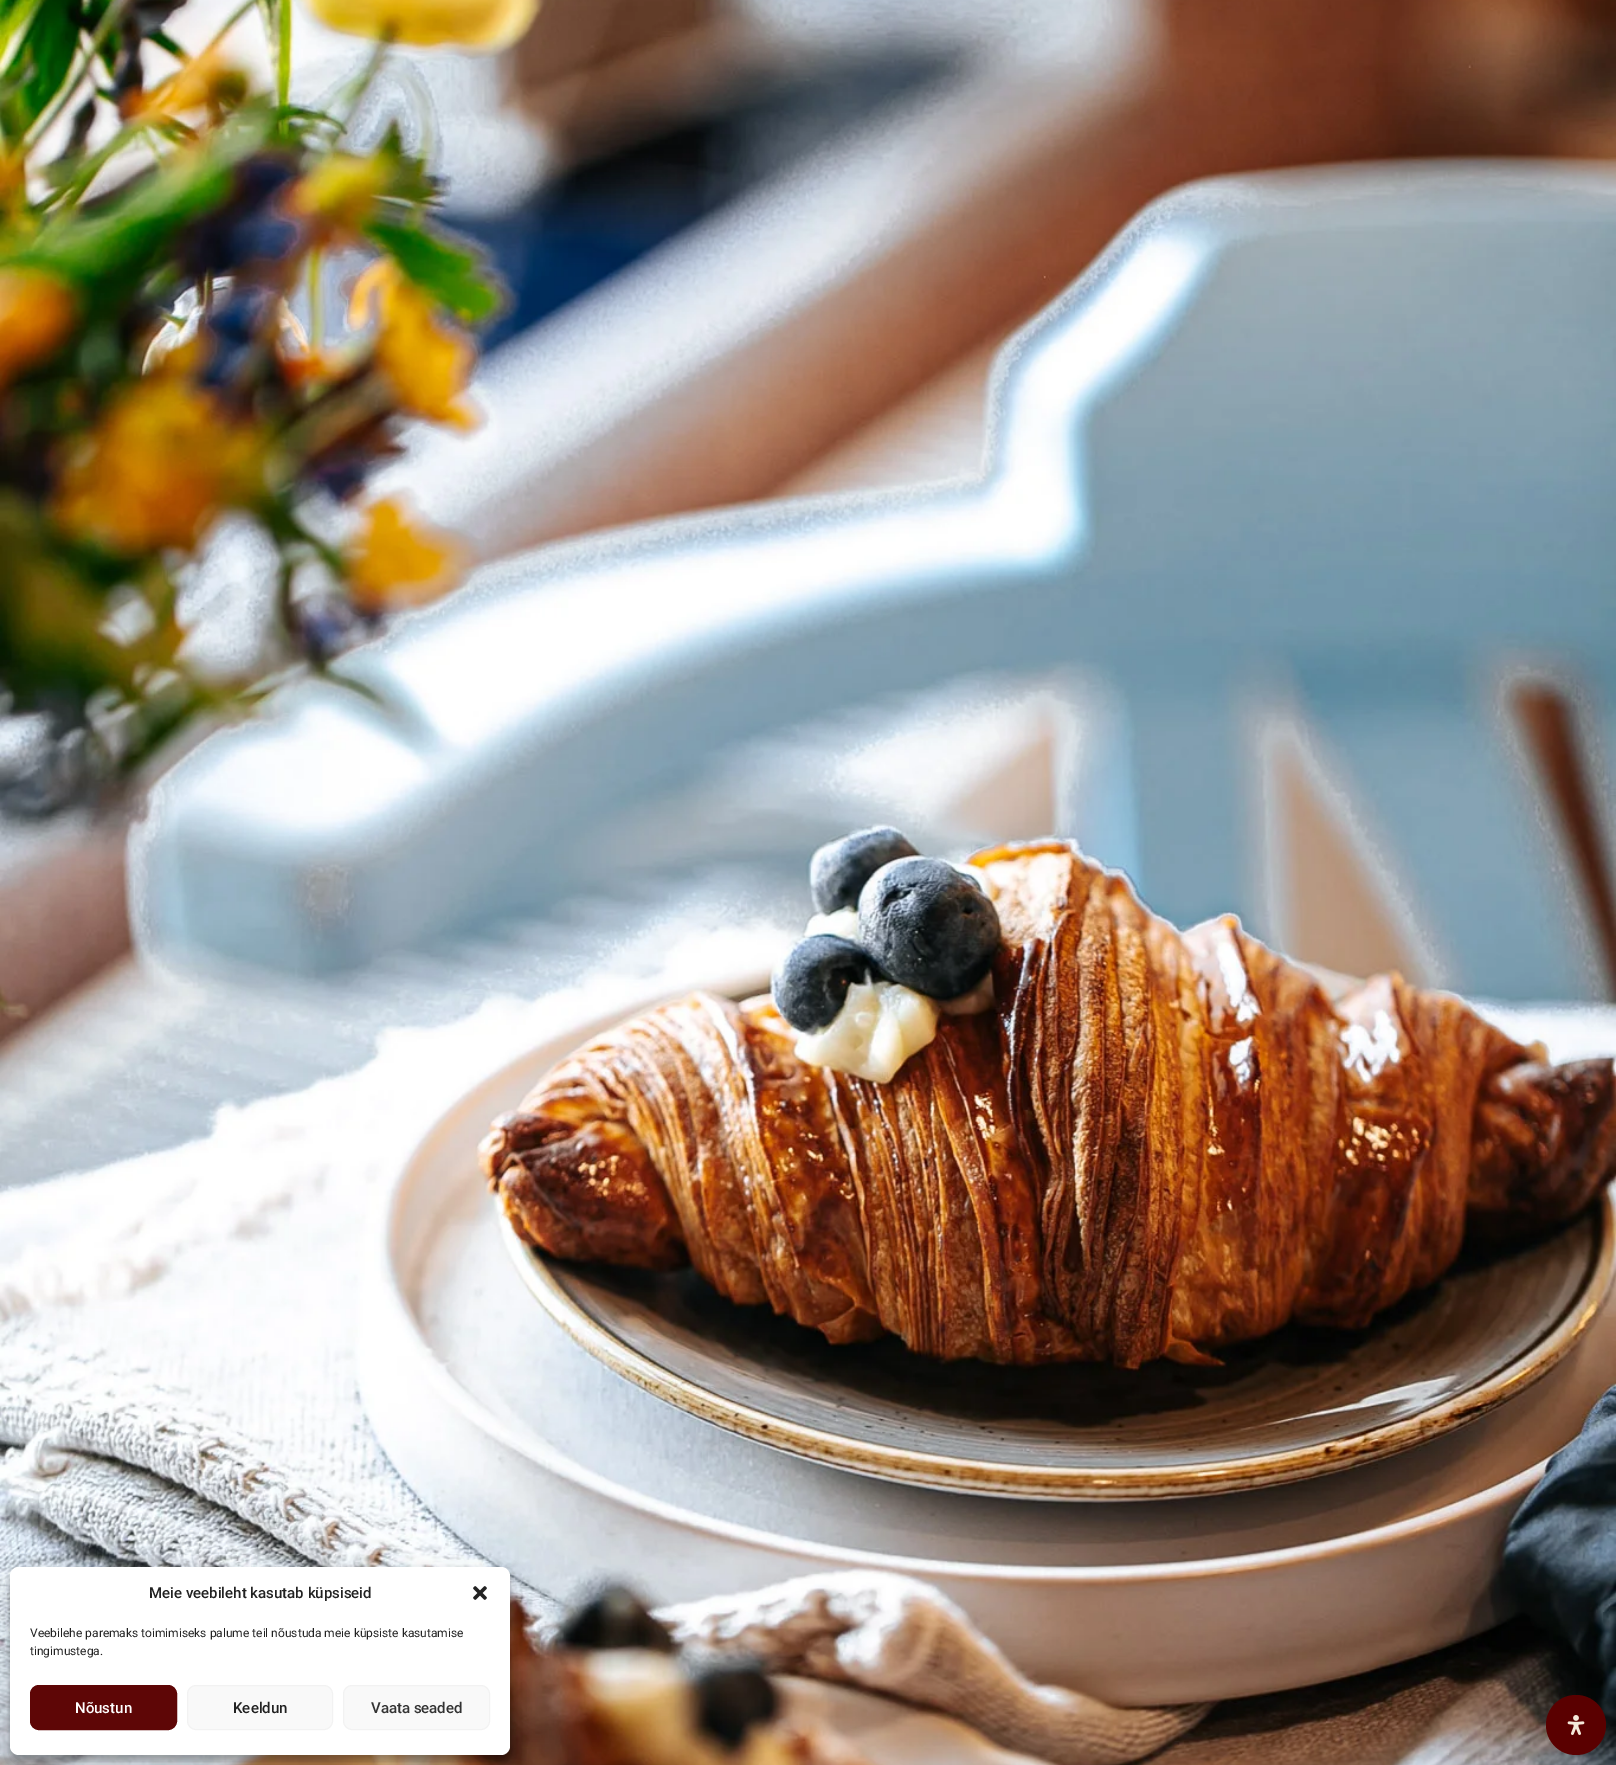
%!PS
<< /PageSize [1616 1765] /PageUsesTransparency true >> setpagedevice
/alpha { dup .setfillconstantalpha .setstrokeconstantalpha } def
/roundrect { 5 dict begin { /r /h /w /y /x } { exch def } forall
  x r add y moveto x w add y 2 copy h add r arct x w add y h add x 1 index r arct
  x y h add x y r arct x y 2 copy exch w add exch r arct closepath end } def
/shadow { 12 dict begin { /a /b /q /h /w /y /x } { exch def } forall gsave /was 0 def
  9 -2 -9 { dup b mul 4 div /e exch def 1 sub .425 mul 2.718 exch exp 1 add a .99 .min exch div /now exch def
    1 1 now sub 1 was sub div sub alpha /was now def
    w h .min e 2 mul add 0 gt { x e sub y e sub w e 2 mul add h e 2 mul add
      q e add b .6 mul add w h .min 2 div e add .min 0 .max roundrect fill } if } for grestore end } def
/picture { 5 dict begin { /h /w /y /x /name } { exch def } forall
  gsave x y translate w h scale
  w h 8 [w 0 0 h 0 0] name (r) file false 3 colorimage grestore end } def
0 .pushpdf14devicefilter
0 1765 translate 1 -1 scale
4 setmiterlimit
1 setgray
0 0 1616 1765 rectfill
(img1.rgb) 0 0 1616 1765 picture
0 setgray
10 1573 500 188 9 3 0.23 shadow
10 1577 500 188 9 10 0.19 shadow
1 setgray
10 1567 500 188 9 roundrect fill
/Roboto-Medium [15 0 0 -15 0 0] selectfont
0.133 setgray
149 1598 moveto (Meie veebileht kasutab küpsiseid) show
(img2.rgb) 473 1586 14 14 picture
/Roboto-Regular [12 0 0 -12 0 0] selectfont
30 1637 moveto (Veebilehe paremaks toimimiseks palume teil nõustuda meie küpsiste kasutamise) show
30 1655 moveto (tingimustega.) show
0.369 0.024 0.024 setrgbcolor
30.5 1685.5 146 44 8.5 roundrect gsave fill grestore
stroke
/Roboto-Medium [15 0 0 -15 0 0] selectfont
1 setgray
75 1713 moveto (Nõustun) show
0.976 setgray
187.5 1685.5 145 44 8.5 roundrect gsave fill grestore
0.949 setgray
stroke
0.133 setgray
233 1713 moveto (Keeldun) show
0.976 setgray
343.5 1685.5 146 44 8.5 roundrect gsave fill grestore
0.949 setgray
stroke
0.2 setgray
371 1713 moveto (Vaata seaded) show
0.353 0 0 setrgbcolor
newpath 1576 1725 30 0 360 arc closepath fill
(img3.rgb) 1567 1715 18 20 picture
.poppdf14devicefilter showpage
